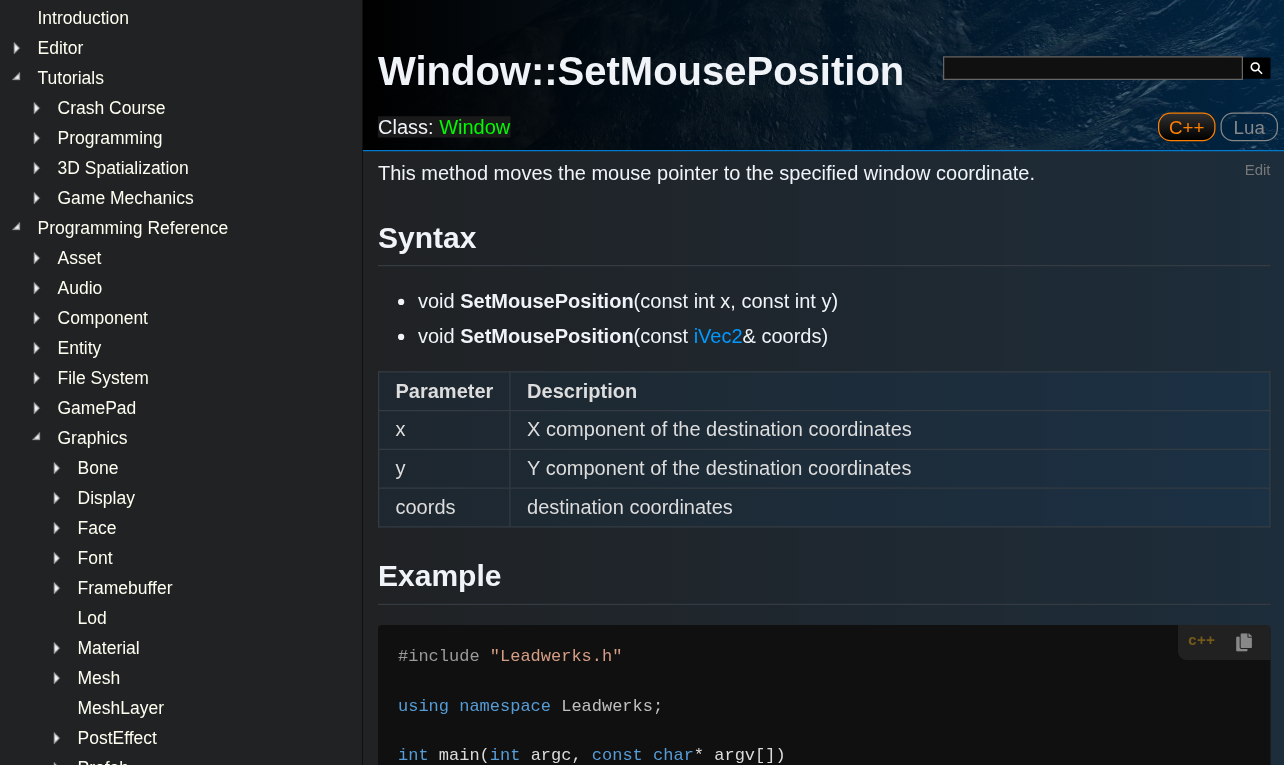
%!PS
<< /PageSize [1284 765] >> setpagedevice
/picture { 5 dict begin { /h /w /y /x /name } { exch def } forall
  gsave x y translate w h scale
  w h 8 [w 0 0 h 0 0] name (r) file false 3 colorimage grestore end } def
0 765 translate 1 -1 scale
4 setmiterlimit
0.063 setgray
0 0 1284 765 rectfill
(img1.rgb) 0 0 362 765 picture
(img2.rgb) 363 0 921 765 picture
showpage
